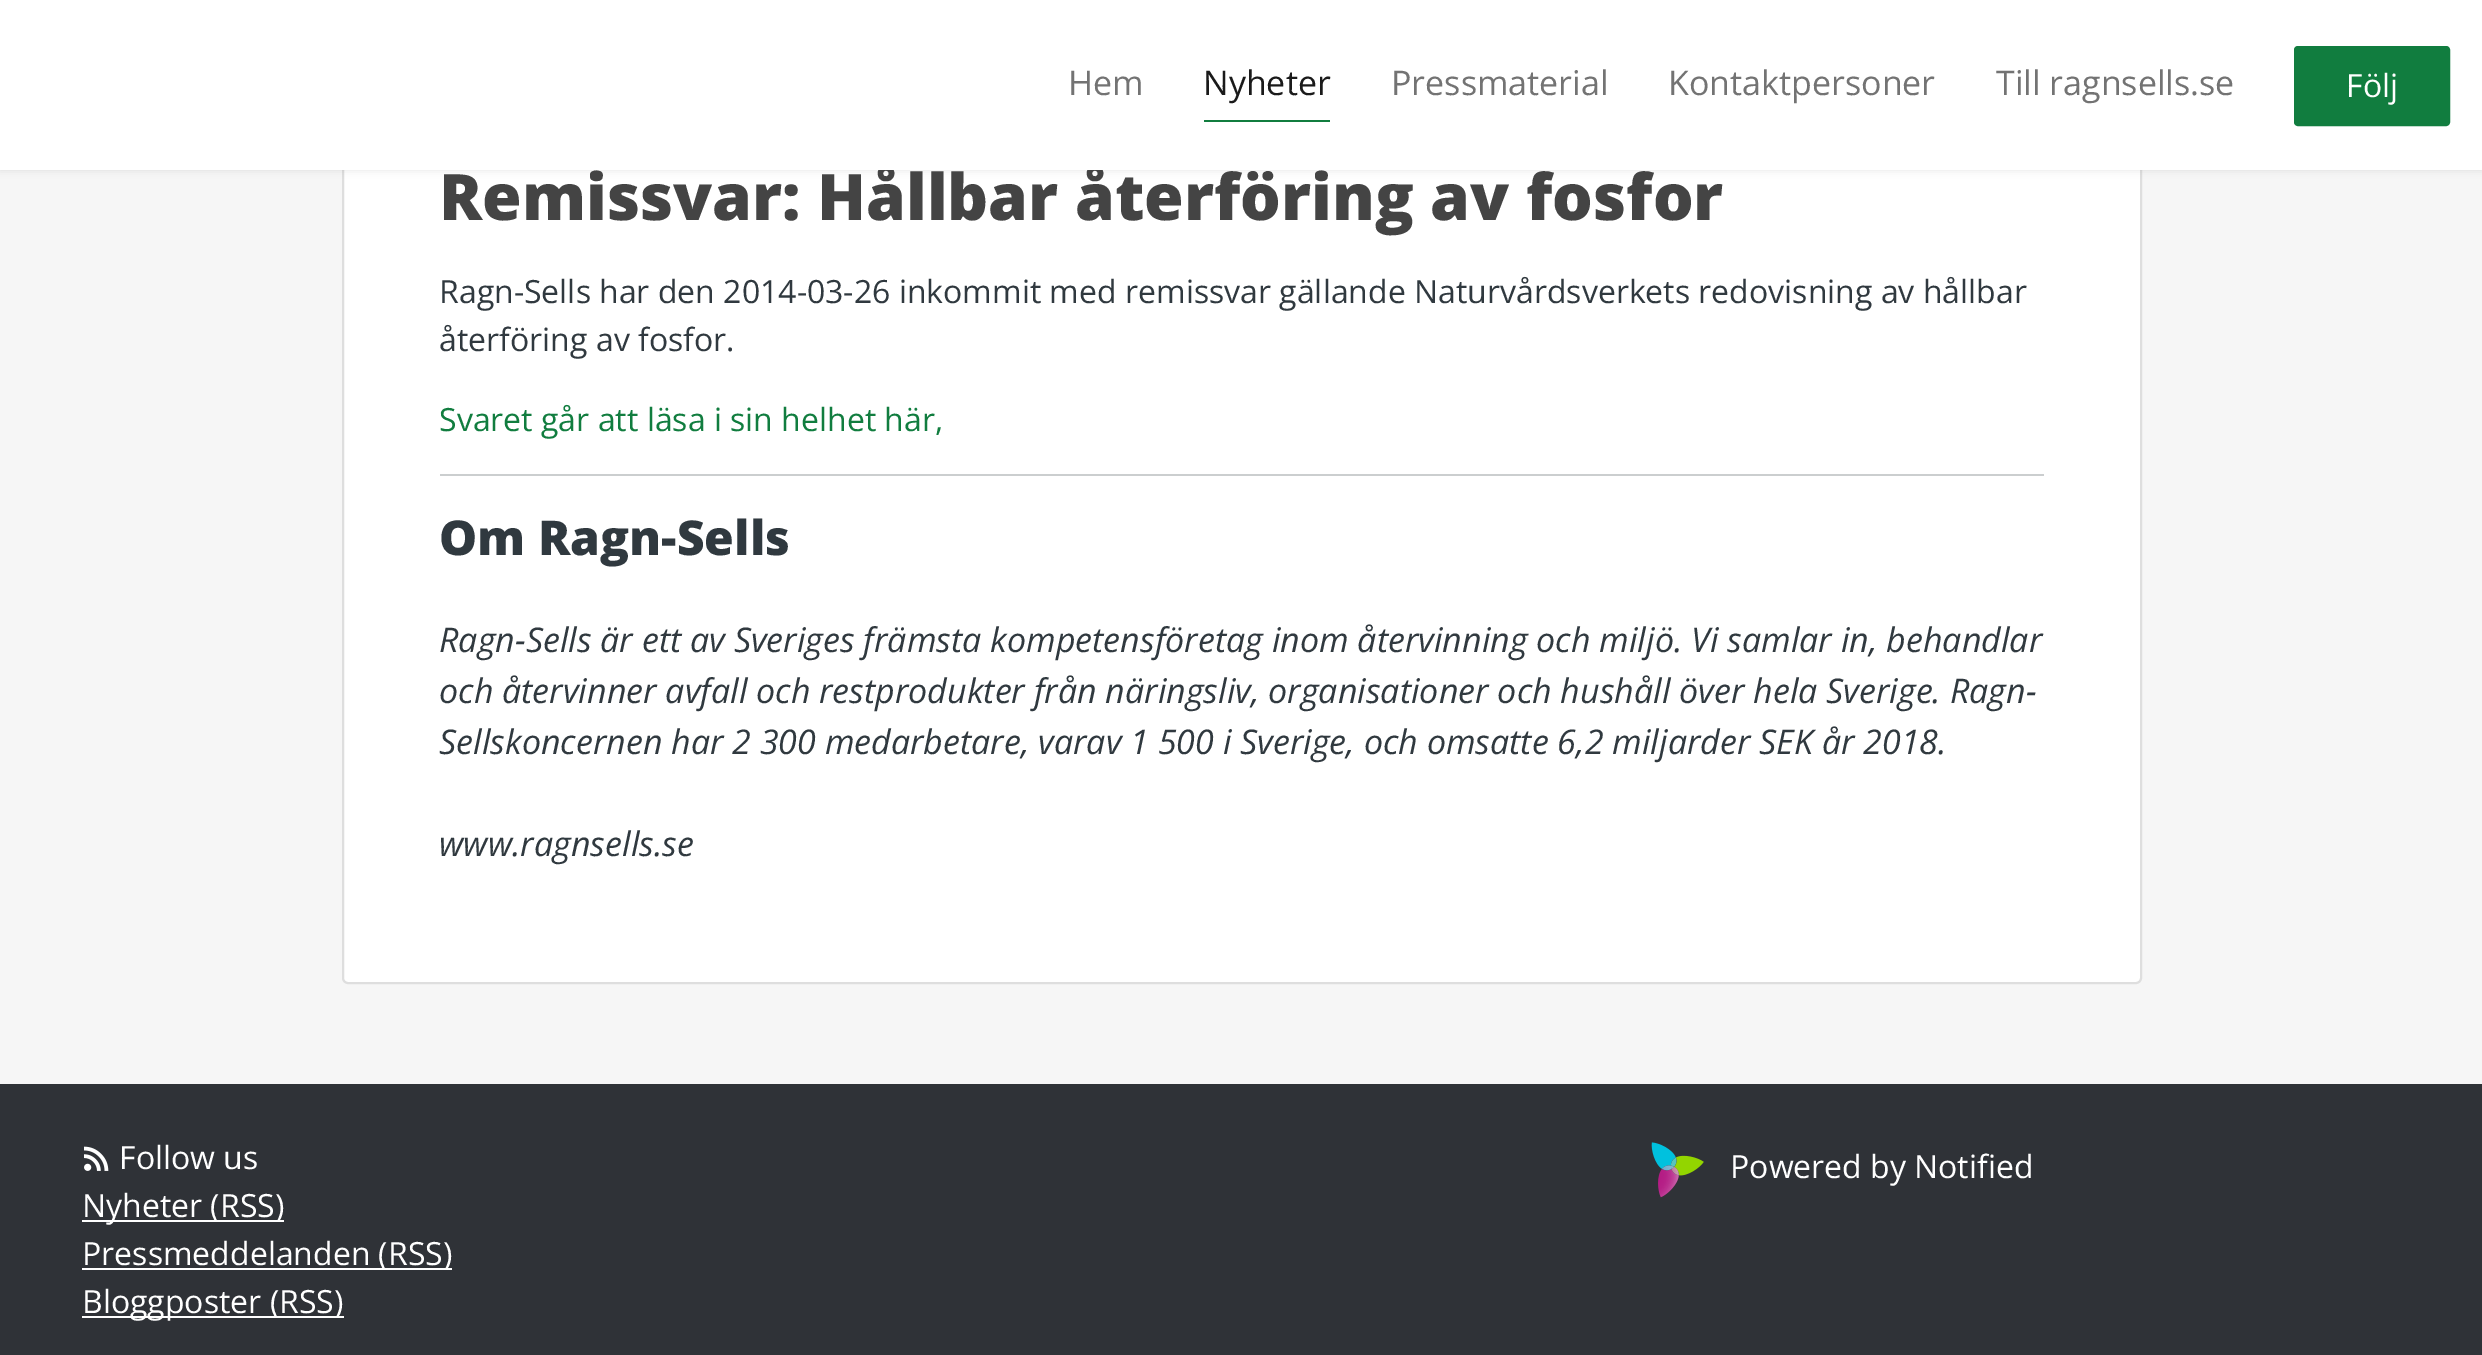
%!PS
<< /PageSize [2482 1355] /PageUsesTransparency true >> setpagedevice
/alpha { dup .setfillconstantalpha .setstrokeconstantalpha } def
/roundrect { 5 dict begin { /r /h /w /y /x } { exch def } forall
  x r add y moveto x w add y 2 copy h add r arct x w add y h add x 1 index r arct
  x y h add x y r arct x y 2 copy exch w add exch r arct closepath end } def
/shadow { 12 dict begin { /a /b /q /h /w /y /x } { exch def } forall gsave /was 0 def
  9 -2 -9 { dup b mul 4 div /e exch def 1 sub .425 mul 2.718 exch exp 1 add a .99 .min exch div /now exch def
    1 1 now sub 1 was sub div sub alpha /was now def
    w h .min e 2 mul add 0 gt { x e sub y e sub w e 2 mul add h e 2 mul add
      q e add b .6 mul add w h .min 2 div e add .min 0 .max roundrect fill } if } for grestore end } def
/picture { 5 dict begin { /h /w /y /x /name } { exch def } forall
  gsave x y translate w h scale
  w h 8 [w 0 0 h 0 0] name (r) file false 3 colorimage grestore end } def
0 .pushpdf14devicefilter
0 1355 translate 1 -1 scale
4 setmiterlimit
0.184 0.196 0.216 setrgbcolor
0 0 2482 1355 rectfill
0.965 setgray
0 170 2482 914 rectfill
1 setgray
343 -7 1798 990 5 roundrect gsave fill grestore
0.871 setgray
2 setlinewidth
stroke
0 setgray
0 0 2482 170 0 4 0.1 shadow
/OpenSans-ExtraBold [64 0 0 -64 0 0] selectfont
0.267 setgray
439 220 moveto (Remissvar: Hållbar återföring av fosfor) show
1 setgray
0 0 2482 170 rectfill
/OpenSans-Regular [34 0 0 -34 0 0] selectfont
0.451 setgray
1068 95 moveto (Hem) show
0.067 0.49 0.247 setrgbcolor
1204 120 126 2 rectfill
0.102 setgray
1203 95 moveto (Nyheter) show
0.451 setgray
1391 95 moveto (Pressmaterial) show
1668 95 moveto (Kontaktpersoner) show
1996 95 moveto (Till ragnsells.se) show
0.067 0.49 0.247 setrgbcolor
2296 48 152 76 2 roundrect gsave fill grestore
4 setlinewidth
stroke
/OpenSans-Regular [32 0 0 -32 0 0] selectfont
1 setgray
2346 97 moveto (Följ) show
0.188 0.224 0.247 setrgbcolor
439 303 moveto (Ragn-Sells har den 2014-03-26 inkommit med remissvar gällande Naturvårdsverkets redovisning av hållbar) show
439 351 moveto (återföring av fosfor.) show
0.067 0.49 0.247 setrgbcolor
439 431 moveto (Svaret går att läsa i sin helhet här,) show
0.796 0.808 0.812 setrgbcolor
440 474 1604 2 rectfill
/OpenSans-ExtraBold [48 0 0 -48 0 0] selectfont
0.188 0.224 0.247 setrgbcolor
439 555 moveto (Om Ragn-Sells) show
/OpenSans-Italic [34 0 0 -34 0 0] selectfont
439 652 moveto (Ragn-Sells är ett av Sveriges främsta kompetensföretag inom återvinning och miljö. Vi samlar in, behandlar) show
439 703 moveto (och återvinner avfall och restprodukter från näringsliv, organisationer och hushåll över hela Sverige. Ragn-) show
439 754 moveto (Sellskoncernen har 2 300 medarbetare, varav 1 500 i Sverige, och omsatte 6,2 miljarder SEK år 2018.) show
439 856 moveto (www.ragnsells.se) show
(img1.rgb) 84 1146 25 25 picture
/OpenSans-Regular [32 0 0 -32 0 0] selectfont
1 setgray
119 1169 moveto (Follow us) show
82 1220 202 2 rectfill
82 1217 moveto (Nyheter \(RSS\)) show
82 1268 370 2 rectfill
82 1265 moveto (Pressmeddelanden \(RSS\)) show
82 1316 262 2 rectfill
82 1313 moveto (Bloggposter \(RSS\)) show
(img2.rgb) 1651 1142 53 56 picture
1730 1178 moveto (Powered by Notified) show
.poppdf14devicefilter showpage
